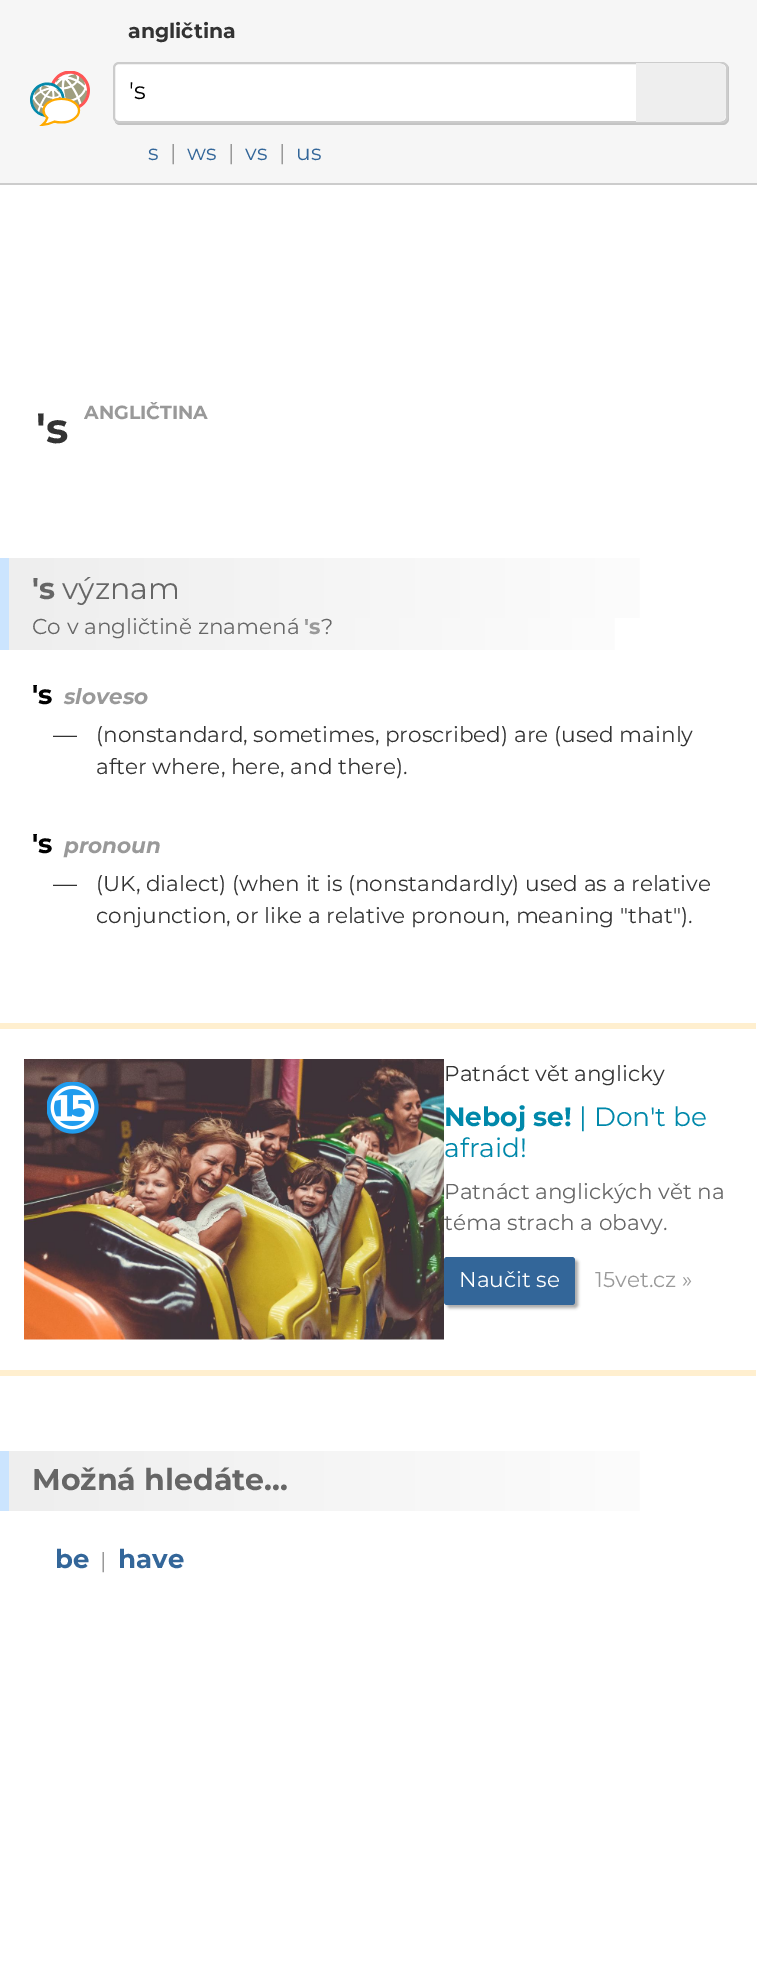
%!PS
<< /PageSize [757 1968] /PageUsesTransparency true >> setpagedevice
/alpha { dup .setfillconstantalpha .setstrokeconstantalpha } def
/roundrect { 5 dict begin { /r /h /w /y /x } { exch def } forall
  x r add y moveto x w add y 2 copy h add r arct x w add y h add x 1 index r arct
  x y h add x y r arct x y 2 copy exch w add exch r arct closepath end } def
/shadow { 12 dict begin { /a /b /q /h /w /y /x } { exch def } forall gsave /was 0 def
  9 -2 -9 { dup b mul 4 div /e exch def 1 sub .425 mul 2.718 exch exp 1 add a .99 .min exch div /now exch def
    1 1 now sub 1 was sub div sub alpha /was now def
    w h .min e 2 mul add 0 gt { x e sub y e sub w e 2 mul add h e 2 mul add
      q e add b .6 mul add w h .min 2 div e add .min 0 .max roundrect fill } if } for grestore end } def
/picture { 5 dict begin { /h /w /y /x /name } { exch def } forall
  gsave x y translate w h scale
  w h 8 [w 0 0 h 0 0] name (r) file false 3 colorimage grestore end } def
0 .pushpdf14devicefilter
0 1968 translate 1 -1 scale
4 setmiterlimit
0.965 setgray
0 0 757 1968 rectfill
0.8 setgray
0 183 757 2 rectfill
/Montserrat-Bold [20.5 0 0 -20.5 0 0] selectfont
0.2 setgray
128 38 moveto (angličtina) show
(img1.rgb) 30 71 60 55 picture
0.765 setgray
newpath 115 122 moveto 116 124 118 125 120 125 curveto 723 125 lineto 726 125 729 122 729 119 curveto 729 69 lineto 729 67 728 65 726 64 curveto 727 65 728 66 728 68 curveto 728 117 lineto 728 120 725 123 722 123 curveto 118 123 lineto 117 123 116 122 115 122 curveto closepath fill
1 setgray
114 63 613 59 5 roundrect gsave fill grestore
0.8 setgray
2 setlinewidth
stroke
/Montserrat-Regular [24 0 0 -24 0 0] selectfont
0 setgray
129 99 moveto ('s) show
0.933 setgray
newpath 636 63 moveto 718 63 lineto 722.5 63 726 66.5 726 71 curveto 726 114 lineto 726 118.5 722.5 122 718 122 curveto 636 122 lineto closepath fill
/Montserrat-Regular [21.6 0 0 -21.6 0 0] selectfont
0.2 0.4 0.6 setrgbcolor
148 160 moveto (s) show
0.6 setgray
170 160 moveto (|) show
0.2 0.4 0.6 setrgbcolor
187 160 moveto (ws) show
0.6 setgray
228 160 moveto (|) show
0.2 0.4 0.6 setrgbcolor
245 160 moveto (vs) show
0.6 setgray
279 160 moveto (|) show
0.2 0.4 0.6 setrgbcolor
296 160 moveto (us) show
1 setgray
0 185 757 1783 rectfill
/Montserrat-Bold [19 0 0 -19 0 0] selectfont
0.6 setgray
84 419 moveto (ANGLIČTINA) show
/Montserrat-Bold [42 0 0 -42 0 0] selectfont
0.2 setgray
36 443 moveto ('s) show
gsave newpath 9 558 moveto 640 558 lineto 640 618 lineto 9 618 lineto closepath clip newpath
<< /ShadingType 2 /ColorSpace /DeviceRGB /Coords [9 588 749 588] /Extend [true true] /Function << /FunctionType 2 /Domain [0 1] /C0 [0.933 0.933 0.933] /C1 [1 1 1] /N 1 >> >> shfill grestore
0.796 0.894 0.996 setrgbcolor
0 558 9 92 rectfill
/Montserrat-Bold [30 0 0 -30 0 0] selectfont
0.4 setgray
32 599 moveto ('s) show
/Montserrat-Regular [30 0 0 -30 0 0] selectfont
62 599 moveto (význam) show
gsave newpath 9 618 moveto 615 618 lineto 615 650 lineto 9 650 lineto closepath clip newpath
<< /ShadingType 2 /ColorSpace /DeviceRGB /Coords [9 630 719 630] /Extend [true true] /Function << /FunctionType 2 /Domain [0 1] /C0 [0.933 0.933 0.933] /C1 [1 1 1] /N 1 >> >> shfill grestore
/Montserrat-Regular [21.6 0 0 -21.6 0 0] selectfont
32 634 moveto (Co v angličtině znamená) show
/Montserrat-Bold [21.6 0 0 -21.6 0 0] selectfont
0.6 setgray
304 634 moveto ('s) show
/Montserrat-Regular [21.6 0 0 -21.6 0 0] selectfont
0.4 setgray
321 634 moveto (?) show
/Montserrat-Bold [27 0 0 -27 0 0] selectfont
0 setgray
32 704 moveto ('s) show
/Montserrat-BoldItalic [21.6 0 0 -21.6 0 0] selectfont
0.6 setgray
64 704 moveto (sloveso) show
/Montserrat-Regular [24 0 0 -24 0 0] selectfont
0.2 setgray
53 743 moveto (—) show
/Montserrat-Regular [21.6 0 0 -21.6 0 0] selectfont
96 742 moveto (\(nonstandard, sometimes, proscribed\) are \(used mainly) show
96 774 moveto (after where, here, and there\).) show
/Montserrat-Bold [27 0 0 -27 0 0] selectfont
0 setgray
32 853 moveto ('s) show
/Montserrat-BoldItalic [21.6 0 0 -21.6 0 0] selectfont
0.6 setgray
64 853 moveto (pronoun) show
/Montserrat-Regular [24 0 0 -24 0 0] selectfont
0.2 setgray
53 892 moveto (—) show
/Montserrat-Regular [21.6 0 0 -21.6 0 0] selectfont
96 891 moveto (\(UK, dialect\) \(when it is \(nonstandardly\) used as a relative) show
96 923 moveto (conjunction, or like a relative pronoun, meaning "that"\).) show
1 0.937 0.812 setrgbcolor
0 1023 756 6 rectfill
0 1370 756 6 rectfill
(img2.rgb) 24 1059 420 281 picture
0.2 setgray
444 1081 moveto (Patnáct vět anglicky) show
/Montserrat-Bold [26.5 0 0 -26.5 0 0] selectfont
0 0.533 0.667 setrgbcolor
444 1126 moveto (Neboj se!) show
/Montserrat-Regular [26.5 0 0 -26.5 0 0] selectfont
579 1126 moveto (| Don't be) show
444 1157 moveto (afraid!) show
/Montserrat-Regular [21.6 0 0 -21.6 0 0] selectfont
0.4 setgray
444 1199 moveto (Patnáct anglických vět na) show
444 1230 moveto (téma strach a obavy.) show
0.667 setgray
447 1260 131 48 3 1.5 1 shadow
0.2 0.4 0.6 setrgbcolor
444 1257 131 48 3 roundrect fill
1 setgray
459 1287 moveto (Naučit se) show
0.6 setgray
595 1287 moveto (15vet.cz ») show
(img3.rgb) 47 1082 52 52 picture
gsave newpath 9 1451 moveto 640 1451 lineto 640 1511 lineto 9 1511 lineto closepath clip newpath
<< /ShadingType 2 /ColorSpace /DeviceRGB /Coords [9 1481 749 1481] /Extend [true true] /Function << /FunctionType 2 /Domain [0 1] /C0 [0.933 0.933 0.933] /C1 [1 1 1] /N 1 >> >> shfill grestore
0.796 0.894 0.996 setrgbcolor
0 1451 9 60 rectfill
/Montserrat-Bold [30 0 0 -30 0 0] selectfont
0.4 setgray
32 1490 moveto (Možná hledáte...) show
/Montserrat-Bold [26 0 0 -26 0 0] selectfont
0.2 0.4 0.6 setrgbcolor
55 1568 moveto (be) show
/Montserrat-Regular [21.6 0 0 -21.6 0 0] selectfont
0.6 setgray
100 1568 moveto (|) show
/Montserrat-Bold [26 0 0 -26 0 0] selectfont
0.2 0.4 0.6 setrgbcolor
118 1568 moveto (have) show
.poppdf14devicefilter showpage
